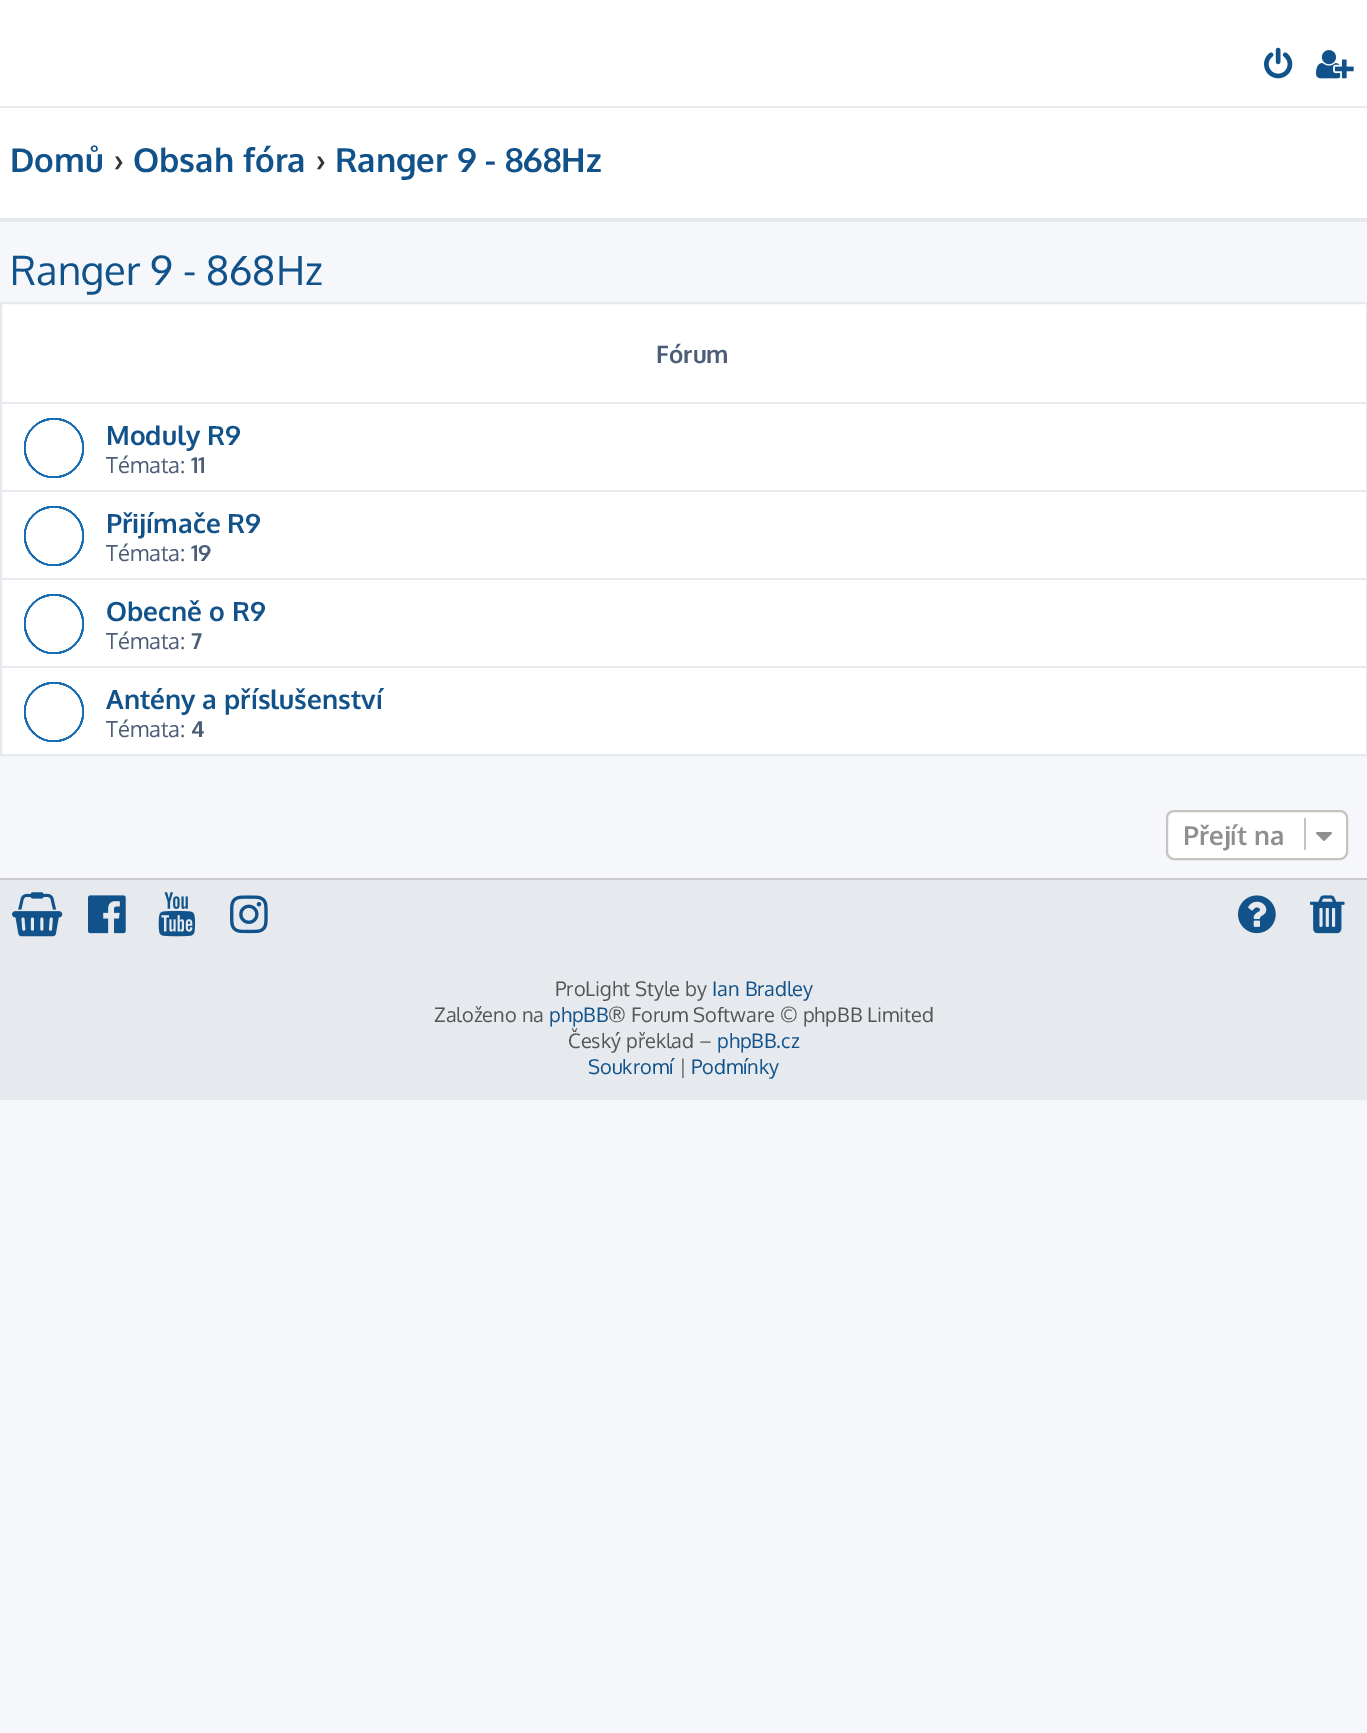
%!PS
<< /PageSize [1367 1733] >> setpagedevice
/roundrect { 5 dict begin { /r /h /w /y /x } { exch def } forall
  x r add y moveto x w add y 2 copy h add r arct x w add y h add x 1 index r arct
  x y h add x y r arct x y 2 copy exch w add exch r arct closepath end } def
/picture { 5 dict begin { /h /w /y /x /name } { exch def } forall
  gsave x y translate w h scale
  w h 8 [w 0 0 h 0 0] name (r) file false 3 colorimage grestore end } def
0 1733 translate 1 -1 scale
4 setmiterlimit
0.961 0.969 0.98 setrgbcolor
0 0 1367 1733 rectfill
1 setgray
0 0 1367 106 rectfill
0.902 0.914 0.929 setrgbcolor
0 106 1367 2 rectfill
(img1.rgb) 1264 47 29 32 picture
(img2.rgb) 1316 50 38 29 picture
1 setgray
0 108 1367 110 rectfill
0.902 0.914 0.929 setrgbcolor
0 218 1367 4 rectfill
/Oxygen-Bold [33 0 0 -33 0 0] selectfont
0.063 0.322 0.537 setrgbcolor
10 172 moveto (Domů) show
0.2 setgray
114 172 moveto (›) show
0.063 0.322 0.537 setrgbcolor
133 172 moveto (Obsah fóra) show
0.2 setgray
316 172 moveto (›) show
0.063 0.322 0.537 setrgbcolor
335 172 moveto (Ranger 9 - 868Hz) show
/Oxygen-Regular [40 0 0 -40 0 0] selectfont
10 285 moveto (Ranger 9 - 868Hz) show
1 setgray
newpath 1 303 moveto 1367 303 lineto 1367 755 lineto 1 755 lineto closepath gsave fill grestore
0.902 0.914 0.929 setrgbcolor
2 setlinewidth
stroke
/Oxygen-Bold [24 0 0 -24 0 0] selectfont
0.298 0.365 0.467 setrgbcolor
656 363 moveto (Fórum) show
0.902 0.914 0.929 setrgbcolor
2 402 1364 2 rectfill
(img3.rgb) 24 418 60 60 picture
/Oxygen-Bold [26.4 0 0 -26.4 0 0] selectfont
0.063 0.322 0.537 setrgbcolor
106 445 moveto (Moduly R9) show
/Oxygen-Regular [22 0 0 -22 0 0] selectfont
0.298 0.365 0.467 setrgbcolor
106 473 moveto (Témata:) show
/Oxygen-Bold [22 0 0 -22 0 0] selectfont
191 473 moveto (11) show
0.902 0.914 0.929 setrgbcolor
2 490 1364 2 rectfill
(img3.rgb) 24 506 60 60 picture
/Oxygen-Bold [26.4 0 0 -26.4 0 0] selectfont
0.063 0.322 0.537 setrgbcolor
106 533 moveto (Přijímače R9) show
/Oxygen-Regular [22 0 0 -22 0 0] selectfont
0.298 0.365 0.467 setrgbcolor
106 561 moveto (Témata:) show
/Oxygen-Bold [22 0 0 -22 0 0] selectfont
191 561 moveto (19) show
0.902 0.914 0.929 setrgbcolor
2 578 1364 2 rectfill
(img3.rgb) 24 594 60 60 picture
/Oxygen-Bold [26.4 0 0 -26.4 0 0] selectfont
0.063 0.322 0.537 setrgbcolor
106 621 moveto (Obecně o R9) show
/Oxygen-Regular [22 0 0 -22 0 0] selectfont
0.298 0.365 0.467 setrgbcolor
106 649 moveto (Témata:) show
/Oxygen-Bold [22 0 0 -22 0 0] selectfont
191 649 moveto (7) show
0.902 0.914 0.929 setrgbcolor
2 666 1364 2 rectfill
(img3.rgb) 24 682 60 60 picture
/Oxygen-Bold [26.4 0 0 -26.4 0 0] selectfont
0.063 0.322 0.537 setrgbcolor
106 709 moveto (Antény a příslušenství) show
/Oxygen-Regular [22 0 0 -22 0 0] selectfont
0.298 0.365 0.467 setrgbcolor
106 737 moveto (Témata:) show
/Oxygen-Bold [22 0 0 -22 0 0] selectfont
191 737 moveto (4) show
1 setgray
1167 811 180 48 7 roundrect gsave fill grestore
0.78 0.765 0.749 setrgbcolor
stroke
/Oxygen-Bold [26 0 0 -26 0 0] selectfont
0.561 setgray
1183 845 moveto (Přejít na) show
0.78 0.765 0.749 setrgbcolor
1304 818 2 32 rectfill
(img4.rgb) 1316 832 16 9 picture
0.902 0.914 0.929 setrgbcolor
0 880 1367 220 rectfill
0.8 setgray
0 878 1367 2 rectfill
(img5.rgb) 12 892 51 45 picture
(img6.rgb) 88 895 38 39 picture
(img7.rgb) 158 892 38 45 picture
(img8.rgb) 230 895 38 39 picture
(img9.rgb) 1238 895 38 39 picture
(img10.rgb) 1310 895 35 39 picture
/Oxygen-Regular [20 0 0 -20 0 0] selectfont
0.333 setgray
555 996 moveto (ProLight Style by) show
0.063 0.322 0.537 setrgbcolor
712 996 moveto (Ian Bradley) show
0.333 setgray
434 1022 moveto (Založeno na) show
0.063 0.322 0.537 setrgbcolor
549 1022 moveto (phpBB) show
0.333 setgray
608 1022 moveto (® Forum Software © phpBB Limited) show
568 1048 moveto (Český překlad –) show
0.063 0.322 0.537 setrgbcolor
717 1048 moveto (phpBB.cz) show
588 1074 moveto (Soukromí) show
0.333 setgray
679 1074 moveto (|) show
0.063 0.322 0.537 setrgbcolor
691 1074 moveto (Podmínky) show
showpage
